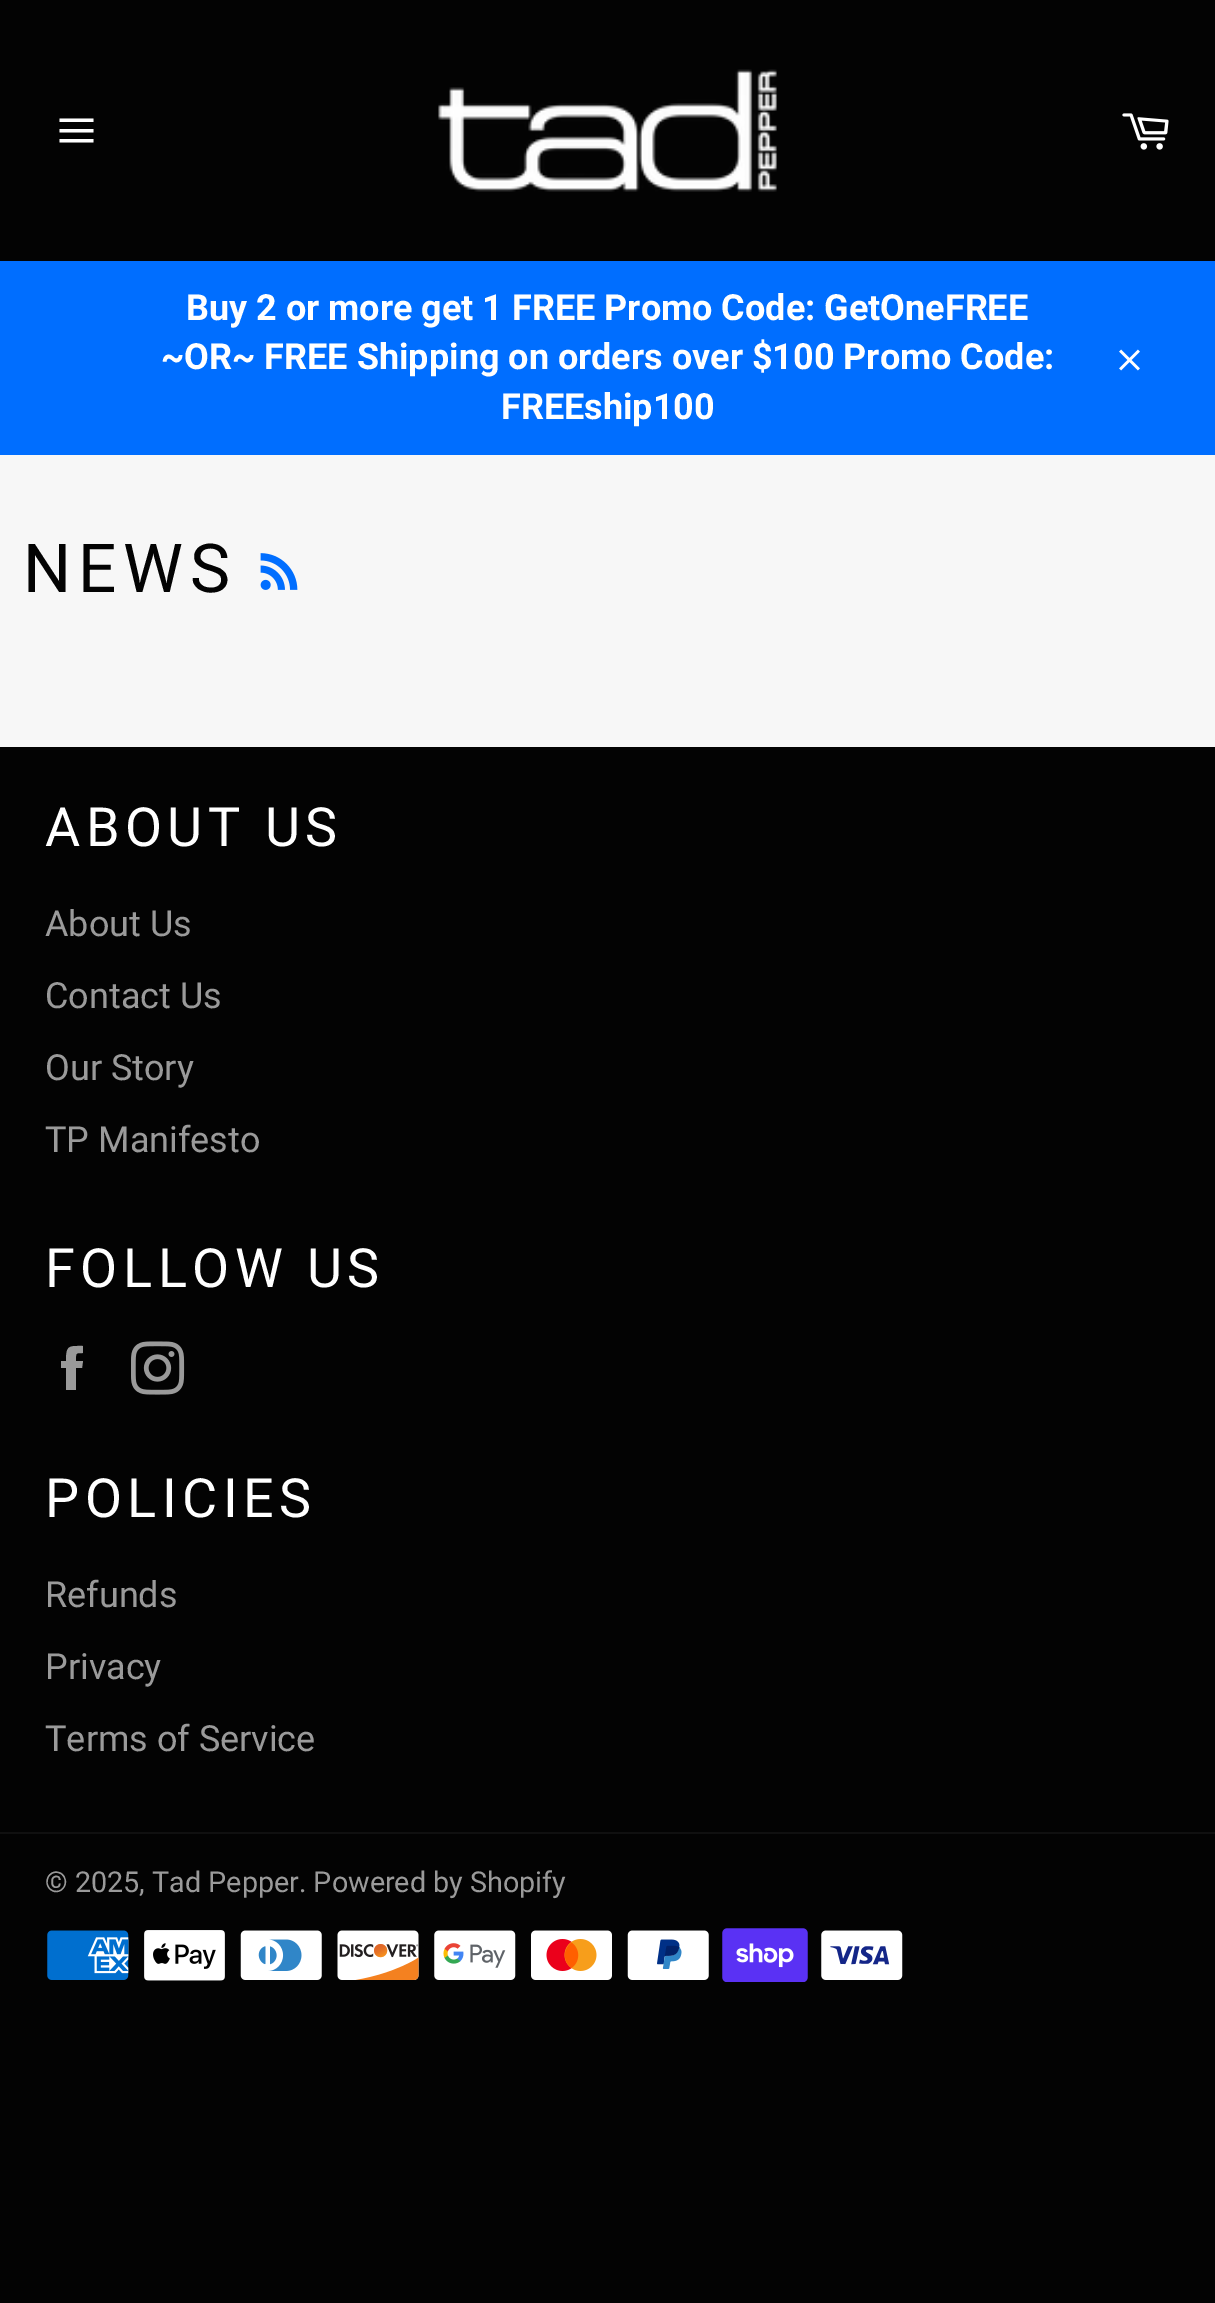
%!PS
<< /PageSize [1215 2303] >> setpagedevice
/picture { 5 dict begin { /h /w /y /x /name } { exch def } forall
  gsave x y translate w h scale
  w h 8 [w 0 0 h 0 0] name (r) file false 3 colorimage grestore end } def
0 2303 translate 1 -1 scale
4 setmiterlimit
0.012 setgray
0 0 1215 2303 rectfill
0.969 setgray
0 455 1215 292 rectfill
1 setgray
newpath 59.5 129 moveto 93.5 129 lineto 93.5 132.5 lineto 59.5 132.5 lineto closepath 59.5 118.5 moveto 93.5 118.5 lineto 93.5 122 lineto 59.5 122 lineto closepath 59.5 139 moveto 93.5 139 lineto 93.5 142.5 lineto 59.5 142.5 lineto closepath fill
(img1.rgb) 438 69 339 123 picture
(img2.rgb) 1122 113 47 37 picture
0 0.431 1 setrgbcolor
0 261 1215 194 rectfill
/Roboto-Bold [36 0 0 -36 0 0] selectfont
1 setgray
186 320 moveto (Buy 2 or more get 1 FREE Promo Code: GetOneFREE) show
161 369 moveto (~OR~ FREE Shipping on orders over $100 Promo Code:) show
501 419 moveto (FREEship100) show
(img3.rgb) 1119 349 21 22 picture
/Roboto-Regular [67.5 0 0 -67.5 0 0] selectfont
0.012 setgray
23 592 moveto 7 0 (NEWS) ashow
(img4.rgb) 260 553 38 37 picture
/Roboto-Regular [54 0 0 -54 0 0] selectfont
1 setgray
45 846 moveto 5.5 0 (ABOUT US) ashow
/Roboto-Regular [36 0 0 -36 0 0] selectfont
0.604 setgray
45 936 moveto (About Us) show
45 1008 moveto (Contact Us) show
45 1080 moveto (Our Story) show
45 1152 moveto (TP Manifesto) show
/Roboto-Regular [54 0 0 -54 0 0] selectfont
1 setgray
45 1287 moveto 5.5 0 (FOLLOW US) ashow
0.604 setgray
newpath 76 1361 moveto 76 1353 75 1353 83 1353 curveto 83 1346 lineto 69 1346 66 1345 66 1361 curveto 61 1361 lineto 61 1368 lineto 66 1368 lineto 66 1390 lineto 76 1390 lineto 76 1368 lineto 82 1368 lineto 83 1361 lineto closepath fill
(img5.rgb) 131 1341 54 54 picture
1 setgray
45 1517 moveto 5.5 0 (POLICIES) ashow
/Roboto-Regular [36 0 0 -36 0 0] selectfont
0.604 setgray
45 1607 moveto (Refunds) show
45 1679 moveto (Privacy) show
45 1751 moveto (Terms of Service) show
0.063 setgray
0 1832 1215 2 rectfill
/Roboto-Regular [28.75 0 0 -28.75 0 0] selectfont
0.604 setgray
45 1892 moveto (© 2025, Tad Pepper. Powered by Shopify) show
(img6.rgb) 47 1930 82 50 picture
(img7.rgb) 144 1930 81 51 picture
(img8.rgb) 240 1930 82 50 picture
(img9.rgb) 337 1930 82 50 picture
(img10.rgb) 434 1930 82 50 picture
(img11.rgb) 531 1930 81 50 picture
(img12.rgb) 627 1930 82 50 picture
(img13.rgb) 722 1928 86 54 picture
(img14.rgb) 821 1930 82 50 picture
showpage
